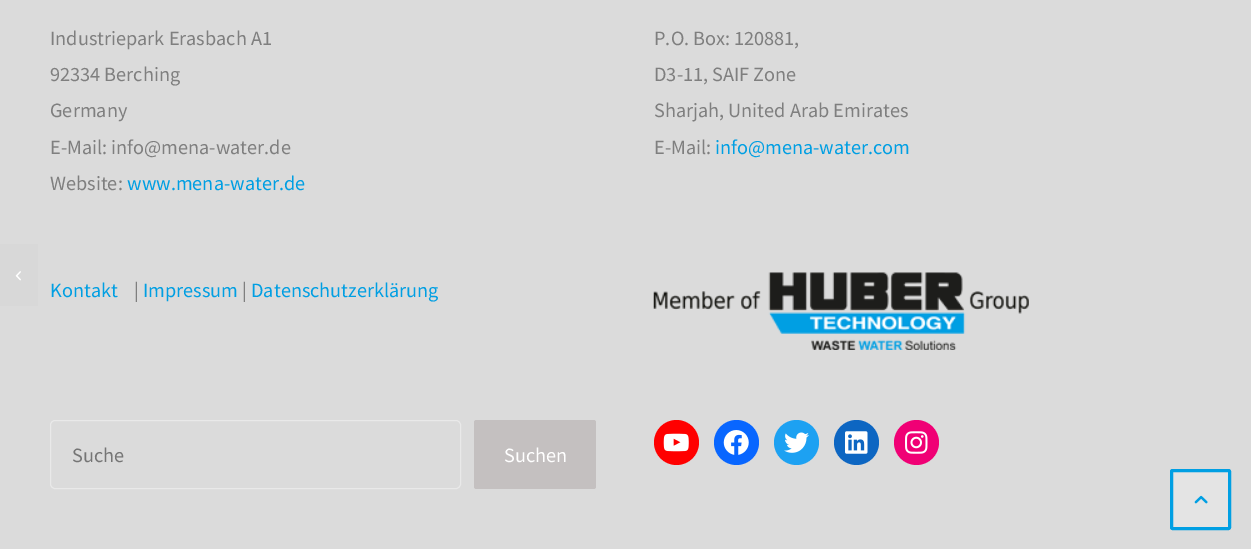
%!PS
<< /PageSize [1251 549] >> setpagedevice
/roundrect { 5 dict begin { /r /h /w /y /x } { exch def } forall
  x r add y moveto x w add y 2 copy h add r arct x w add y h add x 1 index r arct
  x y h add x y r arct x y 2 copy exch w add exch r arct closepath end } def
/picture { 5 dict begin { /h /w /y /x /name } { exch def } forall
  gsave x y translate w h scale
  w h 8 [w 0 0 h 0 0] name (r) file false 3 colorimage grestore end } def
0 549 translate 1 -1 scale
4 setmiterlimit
0.859 setgray
0 0 1251 549 rectfill
0.847 setgray
0 244 38 62 rectfill
(img1.rgb) 15 271 6 10 picture
/SourceSansPro-Regular [20.25 0 0 -20.25 0 0] selectfont
0.498 setgray
50 45 moveto (Industriepark Erasbach A1) show
50 81 moveto (92334 Berching) show
50 117 moveto (Germany) show
50 154 moveto (E-Mail: info@mena-water.de) show
50 190 moveto (Website:) show
0 0.624 0.89 setrgbcolor
127 190 moveto (www.mena-water.de) show
0.498 setgray
654 45 moveto (P.O. Box: 120881,) show
654 81 moveto (D3-11, SAIF Zone) show
654 117 moveto (Sharjah, United Arab Emirates) show
654 154 moveto (E-Mail:) show
0 0.624 0.89 setrgbcolor
715 154 moveto (info@mena-water.com) show
50 297 moveto (Kontakt) show
0.498 setgray
134 297 moveto (|) show
0 0.624 0.89 setrgbcolor
143 297 moveto (Impressum) show
0.498 setgray
242 297 moveto (|) show
0 0.624 0.89 setrgbcolor
251 297 moveto (Datenschutzerklärung) show
(img2.rgb) 653 272 376 78 picture
0.914 setgray
50.5 420.5 410 68 4.5 roundrect stroke
0.459 setgray
72 462 moveto (Suche) show
0.769 0.753 0.753 setrgbcolor
474 420 122 69 2.5 roundrect fill
1 setgray
504 462 moveto (Suchen) show
1 0 0 setrgbcolor
newpath 676.5 442.5 22.5 0 360 arc closepath fill
(img3.rgb) 663 433 26 19 picture
0.031 0.4 1 setrgbcolor
newpath 736.5 442.5 22.5 0 360 arc closepath fill
(img4.rgb) 723 430 26 25 picture
0.114 0.631 0.949 setrgbcolor
newpath 796.5 442.5 22.5 0 360 arc closepath fill
(img5.rgb) 784 432 25 21 picture
0.051 0.4 0.761 setrgbcolor
newpath 856.5 442.5 22.5 0 360 arc closepath fill
(img6.rgb) 845 431 23 23 picture
0.941 0 0.459 setrgbcolor
newpath 916.5 442.5 22.5 0 360 arc closepath fill
(img7.rgb) 905 431 23 23 picture
0.894 setgray
1171.5 470.5 58 58 1 roundrect gsave fill grestore
0 0.624 0.89 setrgbcolor
3 setlinewidth
stroke
(img8.rgb) 1194 495 14 9 picture
showpage
